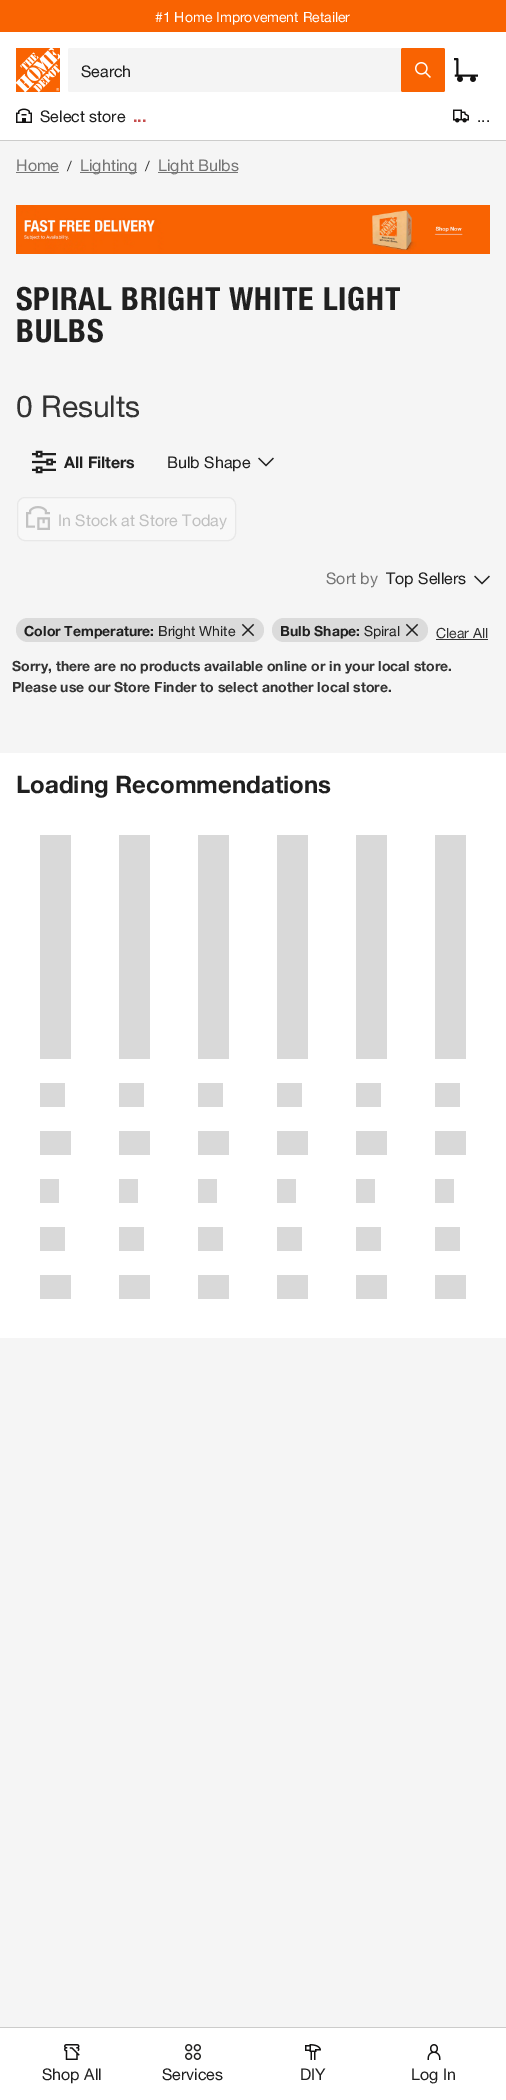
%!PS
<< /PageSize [506 2100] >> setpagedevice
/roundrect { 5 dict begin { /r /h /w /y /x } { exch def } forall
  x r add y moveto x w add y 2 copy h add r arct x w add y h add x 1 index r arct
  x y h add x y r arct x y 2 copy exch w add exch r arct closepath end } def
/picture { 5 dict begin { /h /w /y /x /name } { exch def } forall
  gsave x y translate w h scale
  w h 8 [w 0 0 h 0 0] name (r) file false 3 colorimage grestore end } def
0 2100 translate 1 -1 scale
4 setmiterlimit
1 setgray
0 0 506 2100 rectfill
0.976 0.388 0.008 setrgbcolor
0 0 506 32 rectfill
/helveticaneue-Regular [14 0 0 -14 0 0] selectfont
1 setgray
155 22 moveto (#1 Home Improvement Retailer) show
0.8 0.8 0.796 setrgbcolor
0 140 506 1 rectfill
(img1.rgb) 16 48 44 44 picture
0.957 setgray
68 48 377 44 2 roundrect fill
/helveticaneue-Regular [16 0 0 -16 0 0] selectfont
0.125 setgray
81 77 moveto (Search) show
0.976 0.388 0.008 setrgbcolor
401 48 44 44 2 roundrect fill
(img2.rgb) 415 62 16 16 picture
(img3.rgb) 454 58 24 24 picture
(img4.rgb) 16 108 16 15 picture
0.125 setgray
40 122 moveto (Select store) show
/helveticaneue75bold-Bold [16 0 0 -16 0 0] selectfont
0.776 0.298 0.298 setrgbcolor
133 122 moveto (...) show
(img5.rgb) 453 109 16 14 picture
/helveticaneue-Regular [16 0 0 -16 0 0] selectfont
0.125 setgray
477 122 moveto (...) show
0.8 0.8 0.796 setrgbcolor
0 2027 506 1 rectfill
(img6.rgb) 64 2044 16 16 picture
0.125 setgray
42 2080 moveto (Shop All) show
(img7.rgb) 185 2044 16 16 picture
162 2080 moveto (Services) show
(img8.rgb) 305 2044 16 16 picture
300 2080 moveto (DIY) show
(img9.rgb) 427 2044 14 16 picture
411 2080 moveto (Log In) show
0.961 setgray
0 141 506 1886 rectfill
0.459 setgray
16 171 moveto (Home) show
16 172 43 1 rectfill
/helveticaneue-Regular [14 0 0 -14 0 0] selectfont
0.2 setgray
67 171 moveto (/) show
0.459 setgray
80 172 57 1 rectfill
/helveticaneue-Regular [16 0 0 -16 0 0] selectfont
80 171 moveto (Lighting) show
/helveticaneue-Regular [14 0 0 -14 0 0] selectfont
0.2 setgray
145 171 moveto (/) show
0.459 setgray
158 172 80 1 rectfill
/helveticaneue-Regular [16 0 0 -16 0 0] selectfont
158 171 moveto (Light Bulbs) show
(img10.rgb) 16 205 474 49 picture
/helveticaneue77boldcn-Bold [32 0 0 -32 0 0] selectfont
0.125 setgray
16 310 moveto 0.8 0 (SPIRAL BRIGHT WHITE LIGHT) ashow
16 342 moveto 0.8 0 (BULBS) ashow
/helveticaneue-Regular [30 0 0 -30 0 0] selectfont
0.2 setgray
16 417 moveto (0 Results) show
(img11.rgb) 32 450 24 24 picture
/helveticaneue75bold-Bold [16 0 0 -16 0 0] selectfont
0.125 setgray
64 468 moveto (All Filters) show
/helveticaneue-Regular [16 0 0 -16 0 0] selectfont
167 468 moveto (Bulb Shape) show
(img12.rgb) 258 457 16 10 picture
0.973 setgray
17.5 497.5 218 43 7.5 roundrect gsave fill grestore
0.91 setgray
stroke
(img13.rgb) 26 506 24 24 picture
0.753 setgray
58 526 moveto (In Stock at Store Today) show
0.459 setgray
326 584 moveto (Sort by) show
0.125 setgray
386 584 moveto (Top Sellers) show
(img12.rgb) 474 575 16 10 picture
0.859 setgray
16 618 248 24 12 roundrect fill
/helveticaneue75bold-Bold [14 0 0 -14 0 0] selectfont
0.125 setgray
24 636 moveto (Color Temperature:) show
/helveticaneue-Regular [14 0 0 -14 0 0] selectfont
158 636 moveto (Bright White) show
(img14.rgb) 241 623 14 14 picture
0.859 setgray
272 618 156 24 12 roundrect fill
/helveticaneue75bold-Bold [14 0 0 -14 0 0] selectfont
0.125 setgray
280 636 moveto (Bulb Shape:) show
/helveticaneue-Regular [14 0 0 -14 0 0] selectfont
364 636 moveto (Spiral) show
(img14.rgb) 405 623 14 14 picture
0.2 setgray
436 638 moveto (Clear All) show
436 639 52 1 rectfill
/helveticaneue75bold-Bold [14 0 0 -14 0 0] selectfont
12 671 moveto (Sorry, there are no products available online or in your local store.) show
12 692 moveto (Please use our Store Finder to select another local store.) show
1 setgray
0 753 506 585 rectfill
/helveticaneue75bold-Bold [24 0 0 -24 0 0] selectfont
0.125 setgray
16 793 moveto (Loading Recommendations) show
0.851 setgray
40 835 31 224 rectfill
40 1083 25 24 rectfill
40 1131 31 24 rectfill
40 1179 19 24 rectfill
40 1227 25 24 rectfill
40 1275 31 24 rectfill
119 835 31 224 rectfill
119 1083 25 24 rectfill
119 1131 31 24 rectfill
119 1179 19 24 rectfill
119 1227 25 24 rectfill
119 1275 31 24 rectfill
198 835 31 224 rectfill
198 1083 25 24 rectfill
198 1131 31 24 rectfill
198 1179 19 24 rectfill
198 1227 25 24 rectfill
198 1275 31 24 rectfill
277 835 31 224 rectfill
277 1083 25 24 rectfill
277 1131 31 24 rectfill
277 1179 19 24 rectfill
277 1227 25 24 rectfill
277 1275 31 24 rectfill
356 835 31 224 rectfill
356 1083 25 24 rectfill
356 1131 31 24 rectfill
356 1179 19 24 rectfill
356 1227 25 24 rectfill
356 1275 31 24 rectfill
435 835 31 224 rectfill
435 1083 25 24 rectfill
435 1131 31 24 rectfill
435 1179 19 24 rectfill
435 1227 25 24 rectfill
435 1275 31 24 rectfill
showpage
